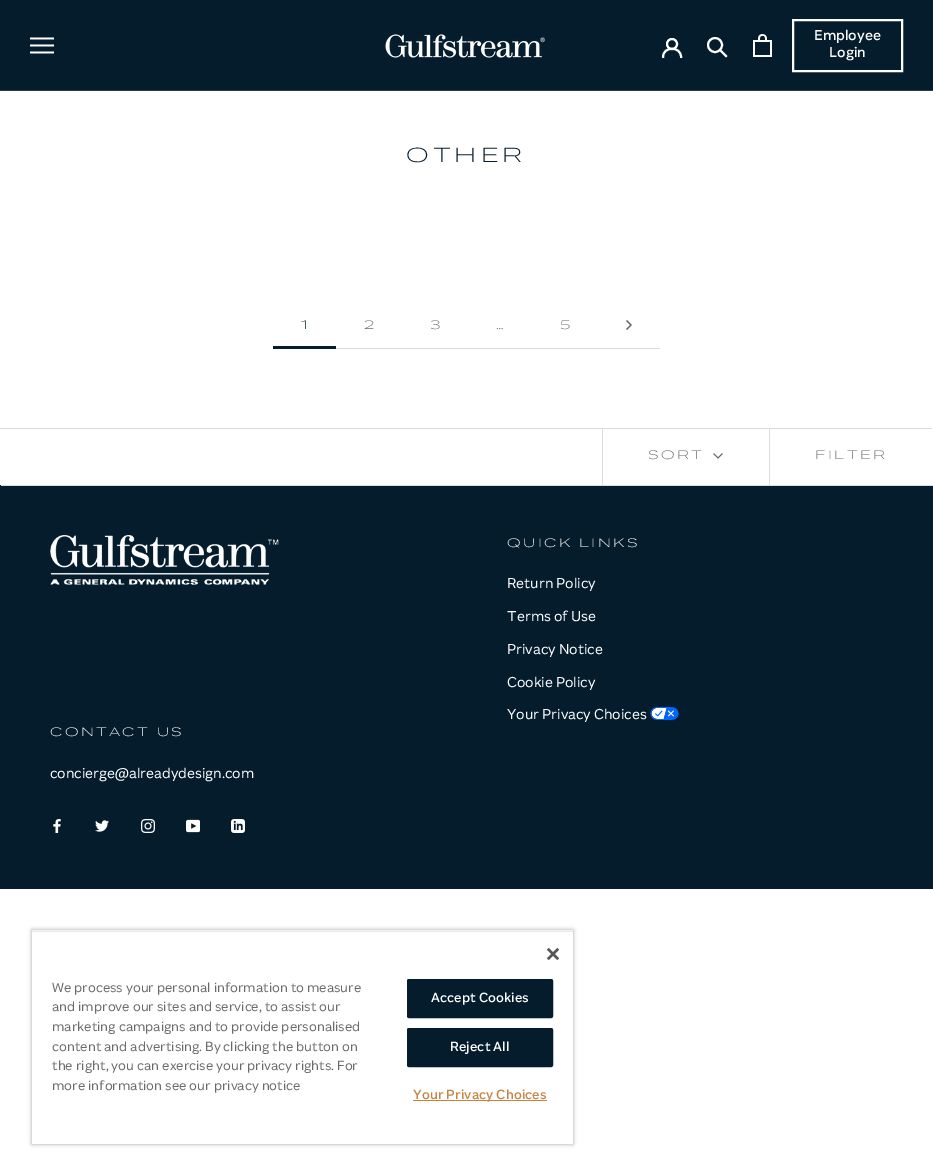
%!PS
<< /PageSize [933 1176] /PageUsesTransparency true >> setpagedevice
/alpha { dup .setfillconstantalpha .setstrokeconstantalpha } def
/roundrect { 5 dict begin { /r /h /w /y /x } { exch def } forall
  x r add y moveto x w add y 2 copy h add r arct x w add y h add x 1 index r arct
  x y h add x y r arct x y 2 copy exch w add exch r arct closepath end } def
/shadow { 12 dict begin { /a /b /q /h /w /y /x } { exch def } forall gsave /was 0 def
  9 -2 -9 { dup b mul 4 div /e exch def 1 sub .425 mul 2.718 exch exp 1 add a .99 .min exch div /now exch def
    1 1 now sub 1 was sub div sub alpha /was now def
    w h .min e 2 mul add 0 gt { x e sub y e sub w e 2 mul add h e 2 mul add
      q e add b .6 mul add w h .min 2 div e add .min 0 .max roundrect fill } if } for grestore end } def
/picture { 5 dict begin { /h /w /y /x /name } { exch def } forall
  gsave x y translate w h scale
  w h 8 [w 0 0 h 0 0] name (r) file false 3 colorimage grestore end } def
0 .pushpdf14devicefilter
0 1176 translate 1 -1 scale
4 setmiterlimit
1 setgray
0 0 933 1176 rectfill
0.016 0.11 0.173 setrgbcolor
0 0 933 90 rectfill
0.165 0.243 0.298 setrgbcolor
0 90 933 1 rectfill
(img1.rgb) 30 37 24 17 picture
(img2.rgb) 385 34 160 24 picture
1 setgray
2 setlinewidth
2 setlinecap
newpath 663 57 moveto 663 46 681 46 681 57 curveto stroke
0 setlinecap
newpath 672 44 5 0 360 arc closepath stroke
2 setlinecap
newpath 726 56 moveto 720.5 50.5 lineto stroke
0 setlinecap
newpath 715 45 7 0 360 arc closepath stroke
(img3.rgb) 753 34 19 23 picture
793 20 109 51 rectstroke
/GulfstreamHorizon-Bold [14 0 0 -14 0 0] selectfont
814 40 moveto (Employee) show
829 57 moveto (Login) show
/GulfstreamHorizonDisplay-Light [20 0 0 -20 0 0] selectfont
0.016 0.11 0.173 setrgbcolor
406 162 moveto 4 0 (OTHER) ashow
273 346 63 3 rectfill
/GulfstreamHorizonDisplay-Light [12 0 0 -12 0 0] selectfont
301 329 moveto (1) show
0.851 0.867 0.875 setrgbcolor
336 348 324 1 rectfill
0.416 setgray
364 329 moveto (2) show
430 329 moveto (3) show
496 329 moveto (…) show
560 329 moveto (5) show
1.1 setlinewidth
2 setlinecap
newpath 627 321 moveto 631 325 lineto 627 329 lineto stroke
0.851 0.867 0.875 setrgbcolor
newpath -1 428 moveto -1 484 lineto 0 484 lineto 0 429 lineto 932 429 lineto 932 428 lineto closepath fill
0.016 0.11 0.173 setrgbcolor
0 485 933 404 rectfill
0.851 0.867 0.875 setrgbcolor
newpath 1 485 moveto 1 486 lineto 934 486 lineto 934 430 lineto 933 430 lineto 933 485 lineto closepath fill
602 429 1 56 rectfill
0.416 setgray
648 459 moveto 2.4 0 (SORT) ashow
1 setlinewidth
newpath 722 454 moveto 718 458 lineto 714 454 lineto stroke
0.851 0.867 0.875 setrgbcolor
769 429 1 56 rectfill
0.416 setgray
815 459 moveto 2.4 0 (FILTER) ashow
(img4.rgb) 50 535 229 50 picture
1 setgray
507 547 moveto 2.4 0 (QUICK LINKS) ashow
/GulfstreamHorizon-Regular [14 0 0 -14 0 0] selectfont
507 588 moveto (Return Policy) show
507 621 moveto (Terms of Use) show
507 654 moveto (Privacy Notice) show
507 687 moveto (Cookie Policy) show
507 719 moveto (Your Privacy Choices) show
(img5.rgb) 650 707 29 13 picture
/GulfstreamHorizonDisplay-Light [12 0 0 -12 0 0] selectfont
50 736 moveto 2.4 0 (CONTACT US) ashow
/GulfstreamHorizon-Regular [14 0 0 -14 0 0] selectfont
50 778 moveto (concierge@alreadydesign.com) show
(img6.rgb) 53 819 8 14 picture
(img7.rgb) 95 820 14 12 picture
(img8.rgb) 141 819 14 14 picture
(img9.rgb) 186 819 14 14 picture
(img10.rgb) 231 819 14 14 picture
gsave
newpath 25 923 moveto 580 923 lineto 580 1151 lineto 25 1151 lineto closepath 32 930 moveto 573 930 lineto 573 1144 lineto 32 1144 lineto closepath eoclip newpath
0 setgray
32 930 541 214 0 2 0.35 shadow
grestore
gsave
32 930 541 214 rectclip
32 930 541 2 rectclip
0 setgray
32 932 541 212 0 2 0.2 shadow
grestore
(img11.rgb) 547 948 12 12 picture
/GulfstreamHorizon-Regular [13 0 0 -13 0 0] selectfont
0.416 setgray
52 992 moveto (We process your personal information to measure) show
52 1011 moveto (and improve our sites and service, to assist our) show
52 1031 moveto (marketing campaigns and to provide personalised) show
52 1051 moveto (content and advertising. By clicking the button on) show
52 1070 moveto (the right, you can exercise your privacy rights. For) show
52 1090 moveto (more information see our privacy notice) show
0.016 0.11 0.173 setrgbcolor
407.5 979.5 145 38 1.5 roundrect gsave fill grestore
0 setlinecap
stroke
/GulfstreamHorizon-Bold [13 0 0 -13 0 0] selectfont
1 setgray
431 1002 moveto 0.1 0 (Accept Cookies) ashow
0.016 0.11 0.173 setrgbcolor
407.5 1028.5 145 38 1.5 roundrect gsave fill grestore
stroke
1 setgray
450 1051 moveto 0.1 0 (Reject All) ashow
0.784 0.51 0.259 setrgbcolor
413 1100 134 1 rectfill
413 1099 moveto 0.1 0 (Your Privacy Choices) ashow
.poppdf14devicefilter showpage
